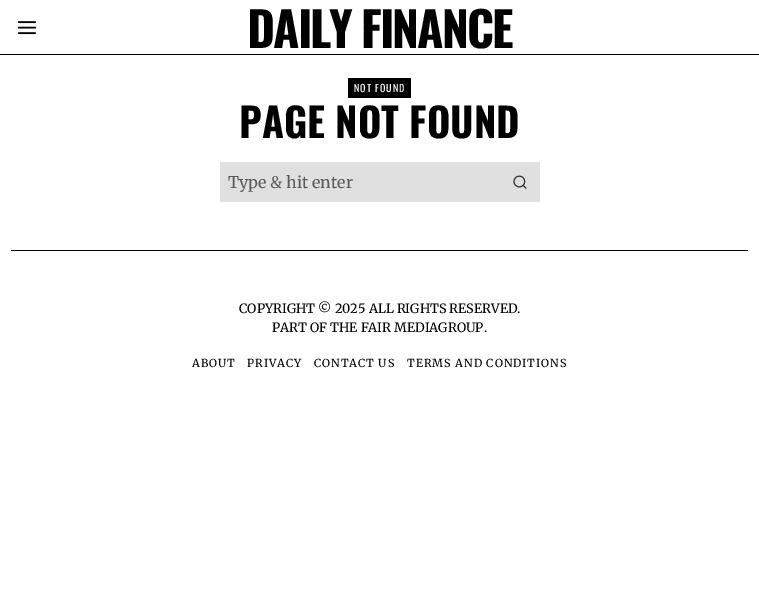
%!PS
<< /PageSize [759 589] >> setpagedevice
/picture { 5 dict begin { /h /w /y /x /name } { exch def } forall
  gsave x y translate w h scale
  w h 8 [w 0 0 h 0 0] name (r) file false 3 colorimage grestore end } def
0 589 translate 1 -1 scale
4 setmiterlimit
1 setgray
0 0 759 589 rectfill
0 setgray
0 54 759 1 rectfill
(img1.rgb) 17 21 20 14 picture
/Oswald-Bold [48 0 0 -48 0 0] selectfont
247 48 moveto -2 0 (DAILY FINANCE) ashow
348 78 63 20 rectfill
/Oswald-Regular [10 0 0 -10 0 0] selectfont
1 setgray
354 92 moveto 1 0 (NOT FOUND) ashow
/Oswald-Bold [40 0 0 -40 0 0] selectfont
0 setgray
239 138 moveto (PAGE NOT FOUND) show
0.878 setgray
220 162 320 40 rectfill
/Merriweather-Regular [16 0 0 -16 0 0] selectfont
0.353 setgray
228 188 moveto (Type & hit enter) show
(img2.rgb) 513 175 14 14 picture
0 setgray
11 250 737 1 rectfill
/Merriweather-Regular [12.8 0 0 -12.8 0 0] selectfont
239 313 moveto (COPYRIGHT © 2025 ALL RIGHTS RESERVED.) show
272 332 moveto (PART OF THE FAIR MEDIAGROUP.) show
/Merriweather-Regular [11 0 0 -11 0 0] selectfont
192 367 moveto 1 0 (ABOUT) ashow
247 367 moveto 1 0 (PRIVACY) ashow
314 367 moveto 1 0 (CONTACT US) ashow
407 367 moveto 1 0 (TERMS AND CONDITIONS) ashow
showpage
